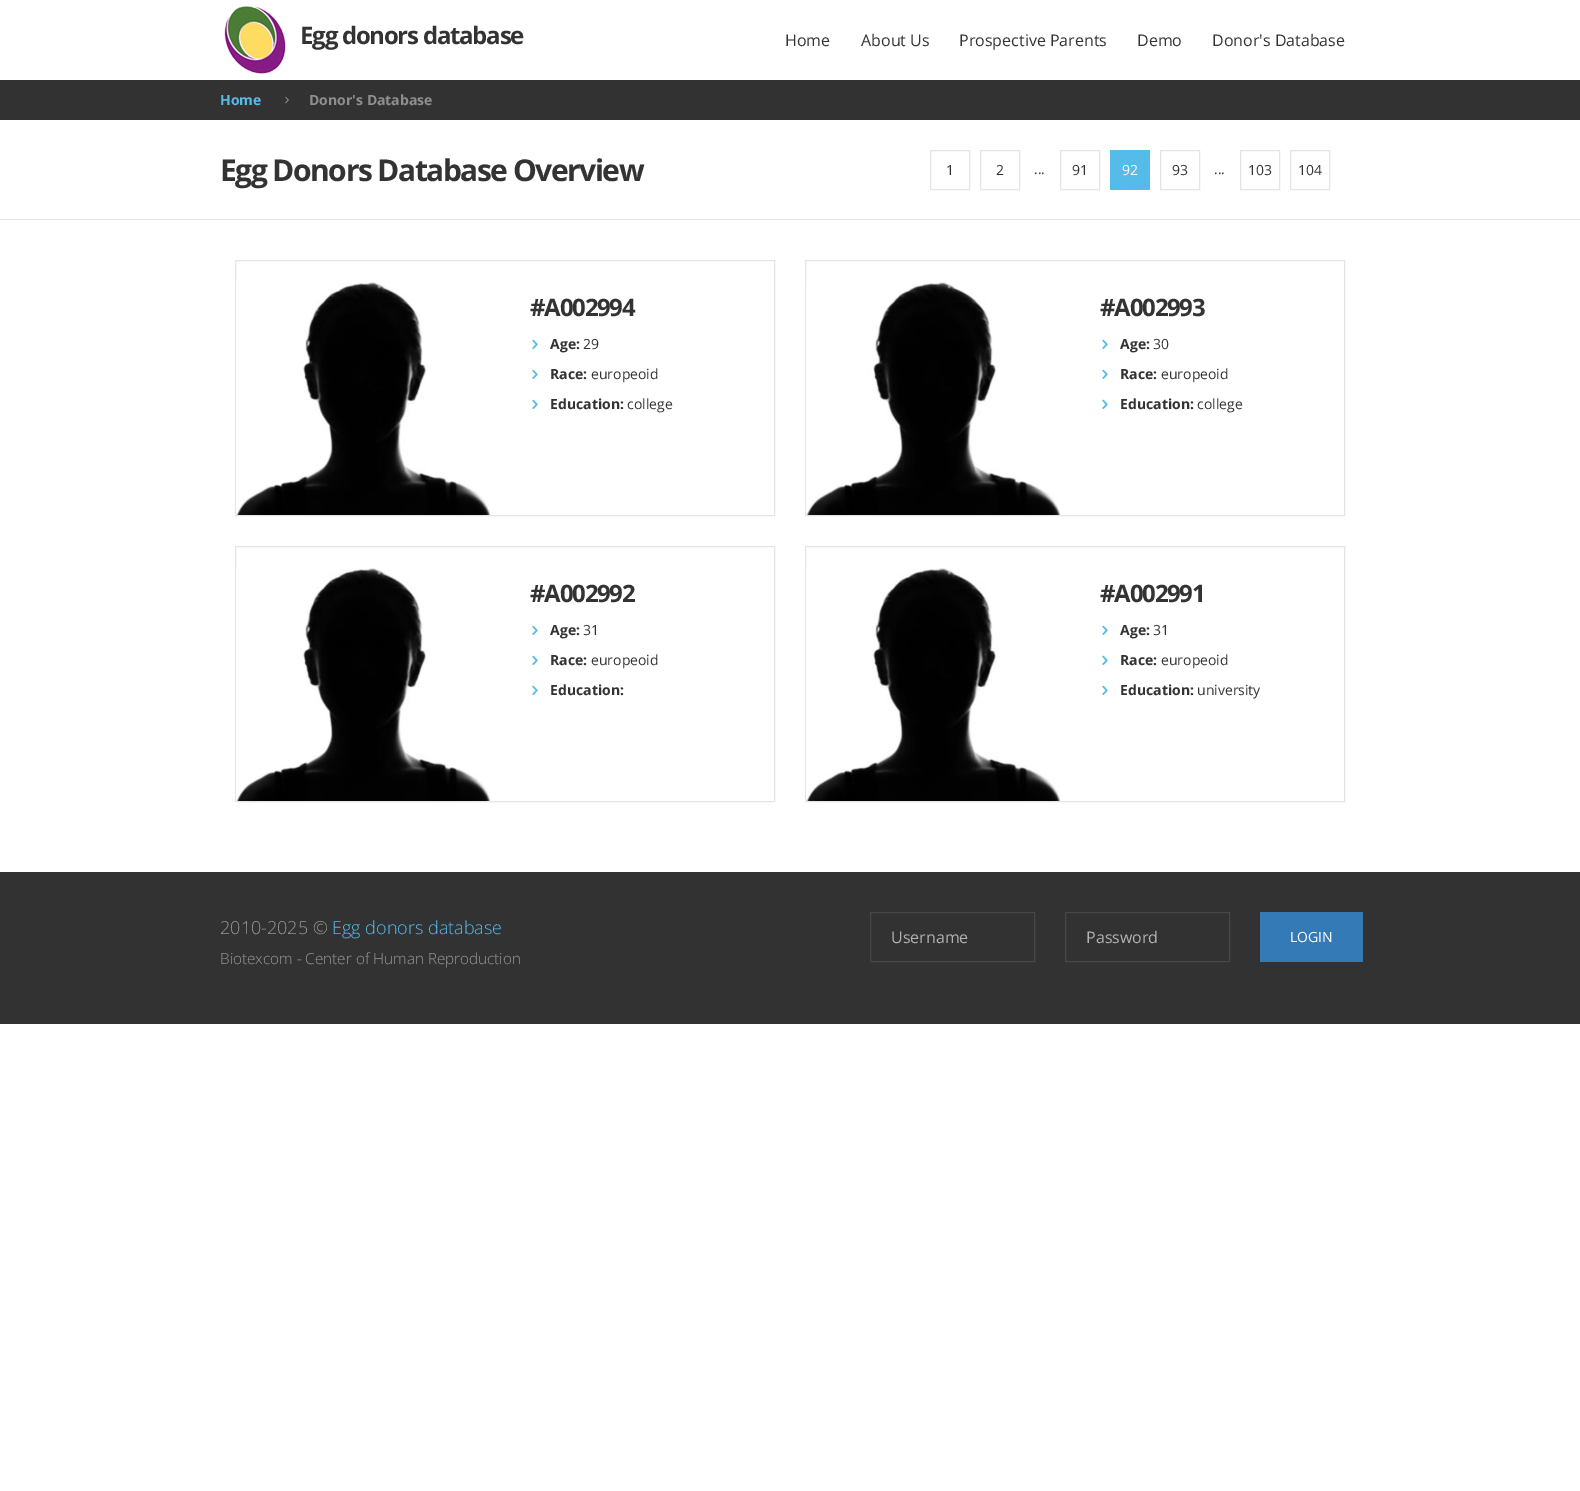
%!PS
<< /PageSize [1580 1491] >> setpagedevice
/picture { 5 dict begin { /h /w /y /x /name } { exch def } forall
  gsave x y translate w h scale
  w h 8 [w 0 0 h 0 0] name (r) file false 3 colorimage grestore end } def
0 1491 translate 1 -1 scale
4 setmiterlimit
1 setgray
0 0 1580 1491 rectfill
(img1.rgb) 224 6 62 68 picture
/OpenSans-Bold [24 0 0 -24 0 0] selectfont
0.2 setgray
300 44 moveto -1.25 0 (Egg donors database) ashow
/OpenSans-Regular [16 0 0 -16 0 0] selectfont
785 46 moveto (Home) show
861 46 moveto (About Us) show
959 46 moveto (Prospective Parents) show
1137 46 moveto (Demo) show
1212 46 moveto (Donor's Database) show
0.196 setgray
0 80 1580 40 rectfill
/OpenSans-Bold [14 0 0 -14 0 0] selectfont
0.333 0.737 0.914 setrgbcolor
220 105 moveto (Home) show
(img2.rgb) 285 96 4 8 picture
0.557 setgray
309 105 moveto (Donor's Database) show
0.898 setgray
0 219 1580 1 rectfill
/OpenSans-Bold [30 0 0 -30 0 0] selectfont
0.2 setgray
220 181 moveto -1.5 0 (Egg Donors Database Overview) ashow
0.898 setgray
930.5 150.5 39 39 rectstroke
/OpenSans-Regular [14 0 0 -14 0 0] selectfont
0.2 setgray
946 175 moveto (1) show
0.898 setgray
980.5 150.5 39 39 rectstroke
0.2 setgray
996 175 moveto (2) show
1034 174 moveto (...) show
0.898 setgray
1060.5 150.5 39 39 rectstroke
0.2 setgray
1072 175 moveto (91) show
0.333 0.737 0.914 setrgbcolor
1110 150 40 40 rectfill
1 setgray
1122 175 moveto (92) show
0.898 setgray
1160.5 150.5 39 39 rectstroke
0.2 setgray
1172 175 moveto (93) show
1214 174 moveto (...) show
0.898 setgray
1240.5 150.5 39 39 rectstroke
0.2 setgray
1248 175 moveto (103) show
0.898 setgray
1290.5 150.5 39 39 rectstroke
0.2 setgray
1298 175 moveto (104) show
0.898 setgray
235.5 260.5 539 255 rectstroke
(img3.rgb) 236 282 254 233 picture
/OpenSans-Bold [24 0 0 -24 0 0] selectfont
0.2 setgray
530 316 moveto -1.25 0 (#A002994) ashow
(img4.rgb) 532 339 6 10 picture
/OpenSans-Bold [14 0 0 -14 0 0] selectfont
550 349 moveto (Age:) show
/OpenSans-Regular [14 0 0 -14 0 0] selectfont
583 349 moveto (29) show
(img4.rgb) 532 369 6 10 picture
/OpenSans-Bold [14 0 0 -14 0 0] selectfont
550 379 moveto (Race:) show
/OpenSans-Regular [14 0 0 -14 0 0] selectfont
591 379 moveto (europeoid) show
(img4.rgb) 532 399 6 10 picture
/OpenSans-Bold [14 0 0 -14 0 0] selectfont
550 409 moveto (Education:) show
/OpenSans-Regular [14 0 0 -14 0 0] selectfont
627 409 moveto (college) show
0.898 setgray
805.5 260.5 539 255 rectstroke
(img3.rgb) 806 282 254 233 picture
/OpenSans-Bold [24 0 0 -24 0 0] selectfont
0.2 setgray
1100 316 moveto -1.25 0 (#A002993) ashow
(img4.rgb) 1102 339 6 10 picture
/OpenSans-Bold [14 0 0 -14 0 0] selectfont
1120 349 moveto (Age:) show
/OpenSans-Regular [14 0 0 -14 0 0] selectfont
1153 349 moveto (30) show
(img4.rgb) 1102 369 6 10 picture
/OpenSans-Bold [14 0 0 -14 0 0] selectfont
1120 379 moveto (Race:) show
/OpenSans-Regular [14 0 0 -14 0 0] selectfont
1161 379 moveto (europeoid) show
(img4.rgb) 1102 399 6 10 picture
/OpenSans-Bold [14 0 0 -14 0 0] selectfont
1120 409 moveto (Education:) show
/OpenSans-Regular [14 0 0 -14 0 0] selectfont
1197 409 moveto (college) show
0.898 setgray
235.5 546.5 539 255 rectstroke
(img5.rgb) 236 568 254 233 picture
/OpenSans-Bold [24 0 0 -24 0 0] selectfont
0.2 setgray
530 602 moveto -1.25 0 (#A002992) ashow
(img4.rgb) 532 625 6 10 picture
/OpenSans-Bold [14 0 0 -14 0 0] selectfont
550 635 moveto (Age:) show
/OpenSans-Regular [14 0 0 -14 0 0] selectfont
583 635 moveto (31) show
(img4.rgb) 532 655 6 10 picture
/OpenSans-Bold [14 0 0 -14 0 0] selectfont
550 665 moveto (Race:) show
/OpenSans-Regular [14 0 0 -14 0 0] selectfont
591 665 moveto (europeoid) show
(img4.rgb) 532 685 6 10 picture
/OpenSans-Bold [14 0 0 -14 0 0] selectfont
550 695 moveto (Education:) show
0.898 setgray
805.5 546.5 539 255 rectstroke
(img5.rgb) 806 568 254 233 picture
/OpenSans-Bold [24 0 0 -24 0 0] selectfont
0.2 setgray
1100 602 moveto -1.25 0 (#A002991) ashow
(img4.rgb) 1102 625 6 10 picture
/OpenSans-Bold [14 0 0 -14 0 0] selectfont
1120 635 moveto (Age:) show
/OpenSans-Regular [14 0 0 -14 0 0] selectfont
1153 635 moveto (31) show
(img4.rgb) 1102 655 6 10 picture
/OpenSans-Bold [14 0 0 -14 0 0] selectfont
1120 665 moveto (Race:) show
/OpenSans-Regular [14 0 0 -14 0 0] selectfont
1161 665 moveto (europeoid) show
(img4.rgb) 1102 685 6 10 picture
/OpenSans-Bold [14 0 0 -14 0 0] selectfont
1120 695 moveto (Education:) show
/OpenSans-Regular [14 0 0 -14 0 0] selectfont
1197 695 moveto (university) show
0.196 setgray
0 872 1580 152 rectfill
/OpenSans-Light [18 0 0 -18 0 0] selectfont
0.596 setgray
220 934 moveto (2010-2025 ©) show
0.333 0.737 0.914 setrgbcolor
332 934 moveto (Egg donors database) show
/OpenSans-Light [15.25 0 0 -15.25 0 0] selectfont
0.596 setgray
220 964 moveto (Biotexcom - Center of Human Reproduction) show
0.278 setgray
870.5 912.5 164 49 rectstroke
/OpenSans-Regular [16 0 0 -16 0 0] selectfont
0.698 setgray
891 943 moveto (Username) show
0.278 setgray
1065.5 912.5 164 49 rectstroke
0.698 setgray
1086 943 moveto (Password) show
0.2 0.478 0.718 setrgbcolor
1260 912 103 50 rectfill
/OpenSans-Regular [14 0 0 -14 0 0] selectfont
1 setgray
1290 942 moveto (LOGIN) show
showpage
